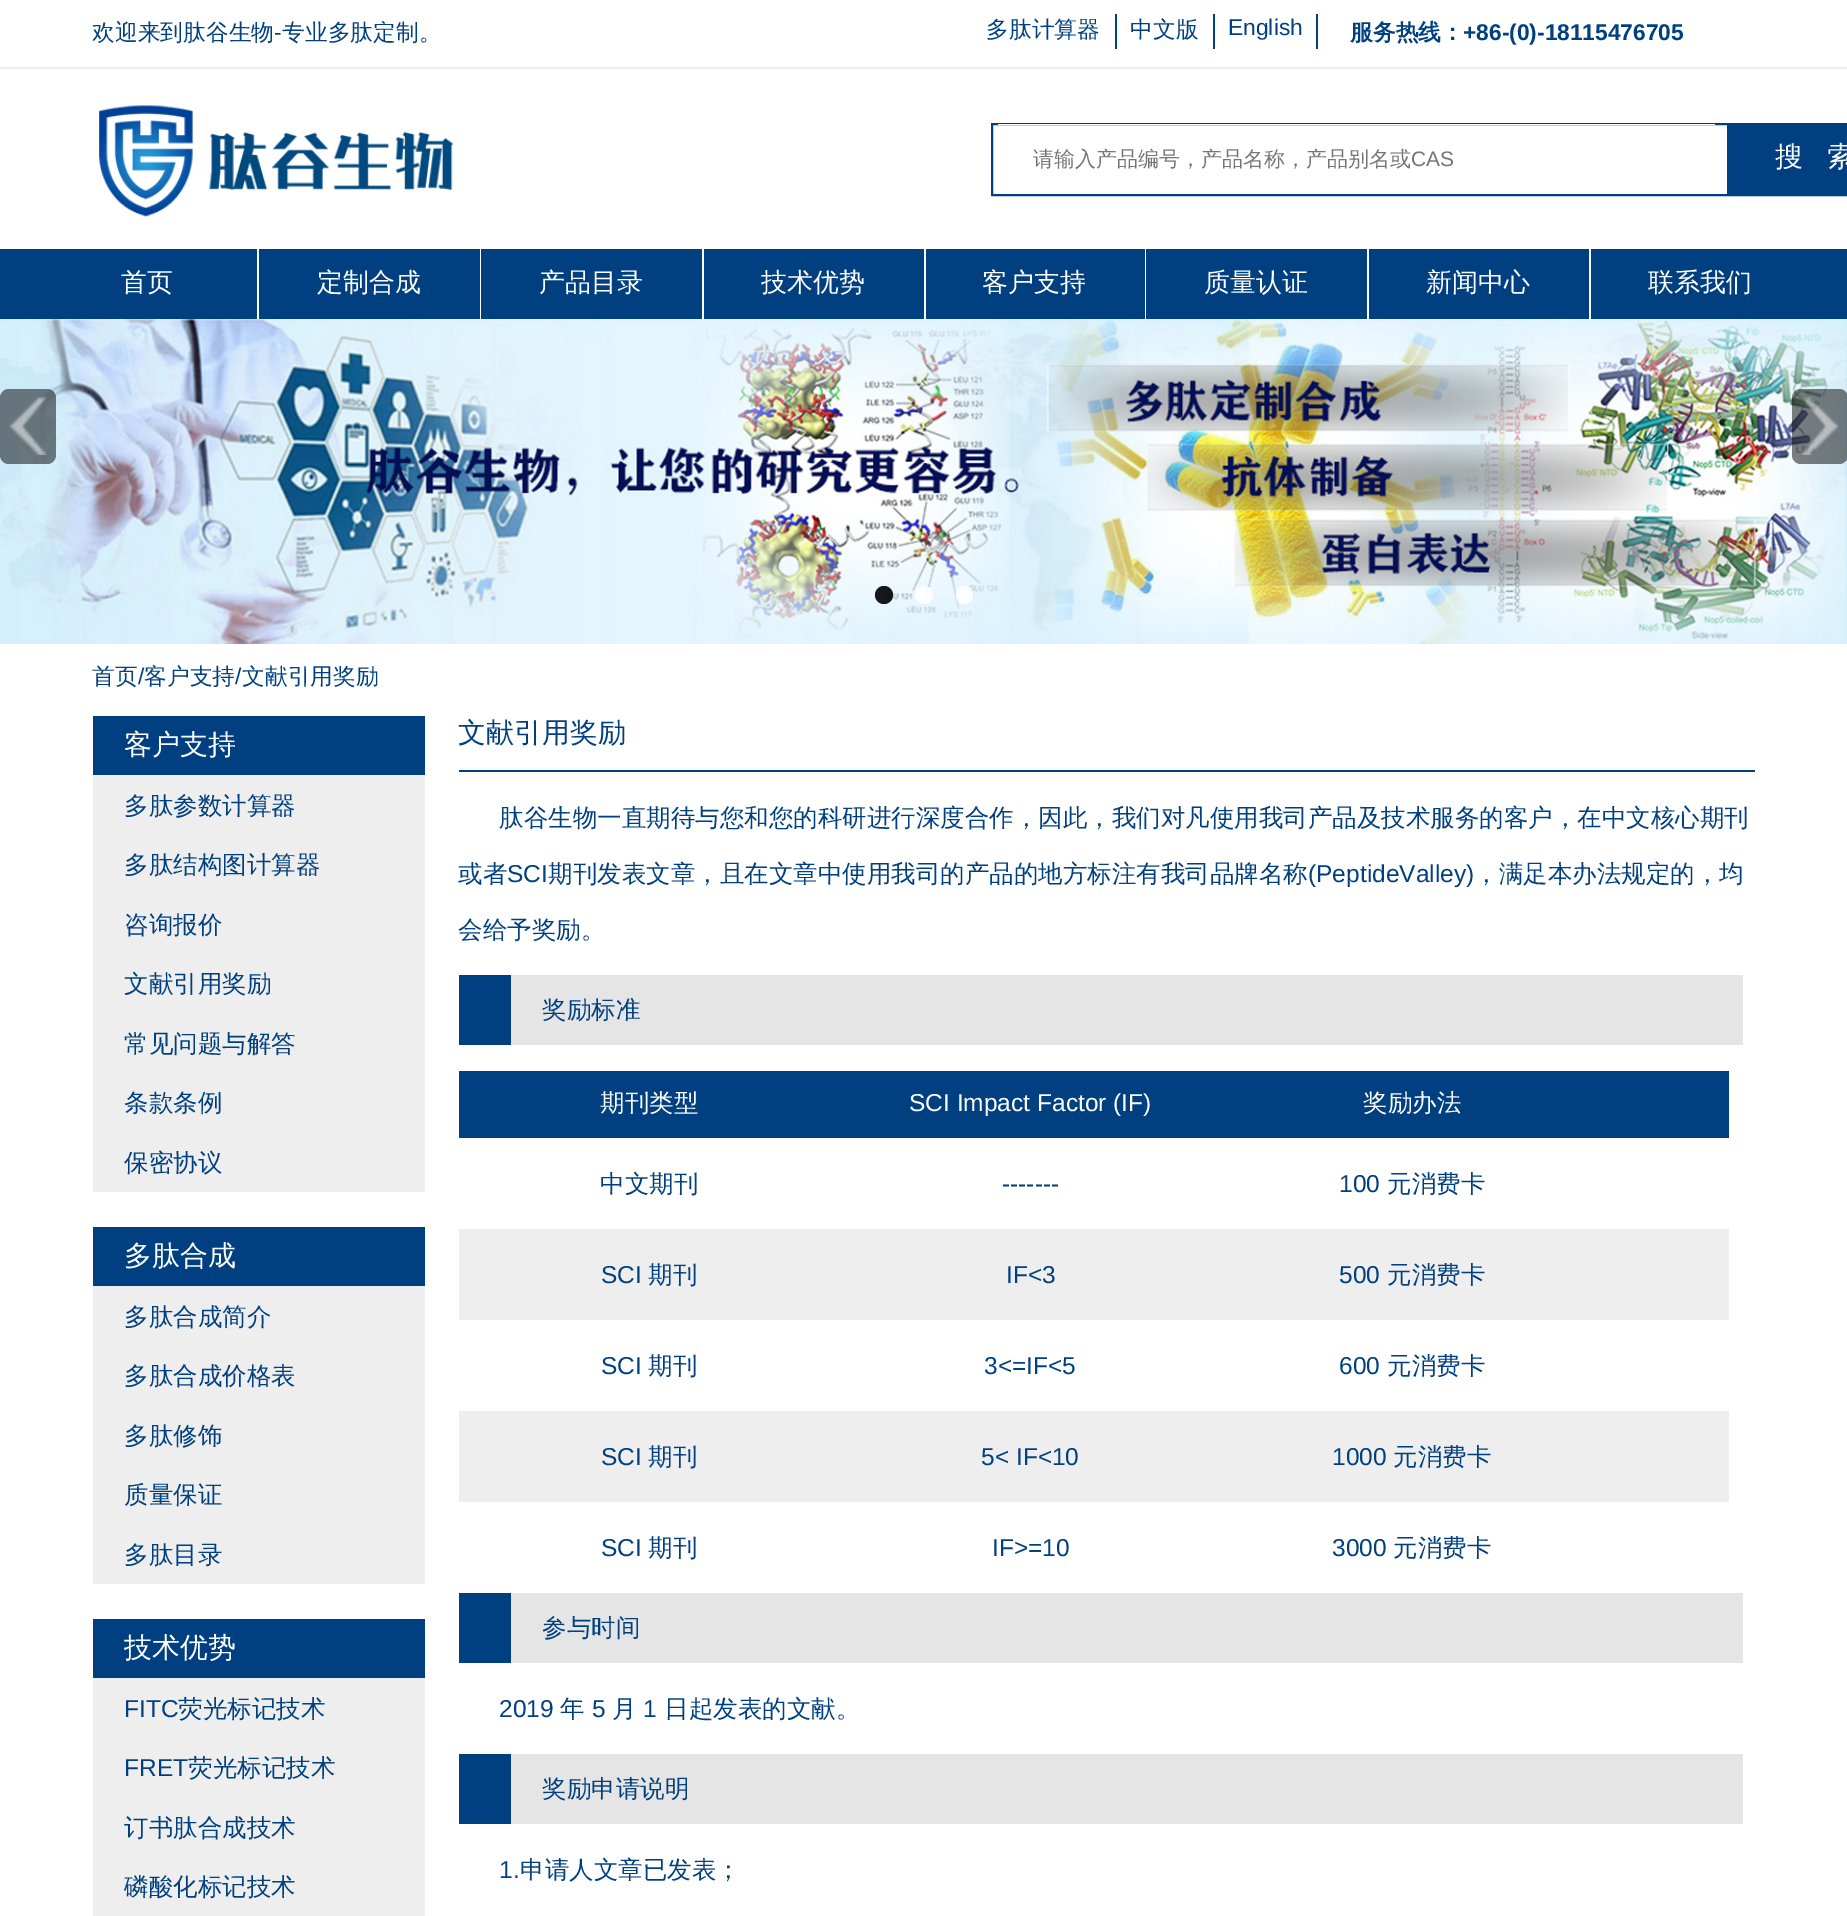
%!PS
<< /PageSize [1847 1916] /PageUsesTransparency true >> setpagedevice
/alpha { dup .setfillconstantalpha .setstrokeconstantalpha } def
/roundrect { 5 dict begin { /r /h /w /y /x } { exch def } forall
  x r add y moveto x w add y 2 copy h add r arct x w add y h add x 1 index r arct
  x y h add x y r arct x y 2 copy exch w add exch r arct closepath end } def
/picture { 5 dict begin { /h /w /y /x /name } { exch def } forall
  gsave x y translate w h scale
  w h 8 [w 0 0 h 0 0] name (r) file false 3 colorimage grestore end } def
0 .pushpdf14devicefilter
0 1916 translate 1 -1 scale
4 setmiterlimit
1 setgray
0 0 1847 1916 rectfill
0.933 setgray
0 67 1847 2 rectfill
/WenQuanYiZenHei-Medium [22.75 0 0 -22.75 0 0] selectfont
0 0.251 0.502 setrgbcolor
92 40 moveto (欢迎来到肽谷生物) show
/LiberationSans-Regular [22.75 0 0 -22.75 0 0] selectfont
274 40 moveto (-) show
/WenQuanYiZenHei-Medium [22.75 0 0 -22.75 0 0] selectfont
282 40 moveto (专业多肽定制。) show
986 37 moveto (多肽计算器) show
1115 14 2 35 rectfill
1130 37 moveto (中文版) show
1213 14 2 35 rectfill
/LiberationSans-Regular [22.75 0 0 -22.75 0 0] selectfont
1228 35 moveto (English) show
1316 14 2 35 rectfill
/WenQuanYiZenHei-Bold [22.75 0 0 -22.75 0 0] selectfont
1350 40 moveto (服务热线：) show
/LiberationSans-Bold [22.75 0 0 -22.75 0 0] selectfont
1463 40 moveto (+86-\(0\)-18115476705) show
(img1.rgb) 99 105 355 112 picture
2 setlinewidth
992 124 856 71 rectstroke
1 setgray
998 124 717 1 rectfill
/WenQuanYiZenHei-Medium [21 0 0 -21 0 0] selectfont
0.459 setgray
1033 166 moveto (请输入产品编号，产品名称，产品别名或) show
/LiberationSans-Regular [21 0 0 -21 0 0] selectfont
1411 166 moveto (CAS) show
0 0.251 0.502 setrgbcolor
1727 125 120 69 rectfill
/WenQuanYiZenHei-Medium [28 0 0 -28 0 0] selectfont
1 setgray
1775 166 moveto -0.5 0 32 (搜   索) widthshow
0 0.251 0.502 setrgbcolor
0 249 1847 70 rectfill
1 setgray
257 249 2 70 rectfill
/WenQuanYiZenHei-Medium [26 0 0 -26 0 0] selectfont
121 291 moveto (首页) show
480 249 1 70 rectfill
317 291 moveto (定制合成) show
702 249 2 70 rectfill
539 291 moveto (产品目录) show
924 249 2 70 rectfill
761 291 moveto (技术优势) show
1145 249 1 70 rectfill
982 291 moveto (客户支持) show
1367 249 2 70 rectfill
1204 291 moveto (质量认证) show
1589 249 2 70 rectfill
1426 291 moveto (新闻中心) show
1648 291 moveto (联系我们) show
(img2.rgb) 0 319 1847 325 picture
0.5 alpha
0 setgray
0 389 56 75 9 roundrect fill
1 alpha
(img3.rgb) 9 397 38 58 picture
0.5 alpha
1792 389 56 75 9 roundrect fill
1 alpha
(img4.rgb) 1801 397 38 58 picture
0.9 alpha
newpath 884 595 9 0 360 arc closepath fill
1 setgray
newpath 924 595 9 0 360 arc closepath fill
956 586 17 18 8.5 roundrect fill
/WenQuanYiZenHei-Medium [22.75 0 0 -22.75 0 0] selectfont
1 alpha
0 0.251 0.502 setrgbcolor
92 684 moveto (首页) show
/LiberationSans-Regular [22.75 0 0 -22.75 0 0] selectfont
138 684 moveto (/) show
/WenQuanYiZenHei-Medium [22.75 0 0 -22.75 0 0] selectfont
144 684 moveto (客户支持) show
/LiberationSans-Regular [22.75 0 0 -22.75 0 0] selectfont
235 684 moveto (/) show
/WenQuanYiZenHei-Medium [22.75 0 0 -22.75 0 0] selectfont
242 684 moveto (文献引用奖励) show
93 716 332 59 rectfill
/WenQuanYiZenHei-Medium [28 0 0 -28 0 0] selectfont
1 setgray
124 754 moveto (客户支持) show
0.933 setgray
93 775 332 417 rectfill
/WenQuanYiZenHei-Medium [24.5 0 0 -24.5 0 0] selectfont
0 0.251 0.502 setrgbcolor
124 814 moveto (多肽参数计算器) show
124 873 moveto (多肽结构图计算器) show
124 933 moveto (咨询报价) show
124 992 moveto (文献引用奖励) show
124 1052 moveto (常见问题与解答) show
124 1111 moveto (条款条例) show
124 1171 moveto (保密协议) show
93 1227 332 59 rectfill
/WenQuanYiZenHei-Medium [28 0 0 -28 0 0] selectfont
1 setgray
124 1265 moveto (多肽合成) show
0.933 setgray
93 1286 332 298 rectfill
/WenQuanYiZenHei-Medium [24.5 0 0 -24.5 0 0] selectfont
0 0.251 0.502 setrgbcolor
124 1325 moveto (多肽合成简介) show
124 1384 moveto (多肽合成价格表) show
124 1444 moveto (多肽修饰) show
124 1503 moveto (质量保证) show
124 1563 moveto (多肽目录) show
93 1619 332 59 rectfill
/WenQuanYiZenHei-Medium [28 0 0 -28 0 0] selectfont
1 setgray
124 1657 moveto (技术优势) show
0.933 setgray
93 1678 332 238 rectfill
/LiberationSans-Regular [24.5 0 0 -24.5 0 0] selectfont
0 0.251 0.502 setrgbcolor
124 1717 moveto (FITC) show
/WenQuanYiZenHei-Medium [24.5 0 0 -24.5 0 0] selectfont
178 1717 moveto (荧光标记技术) show
/LiberationSans-Regular [24.5 0 0 -24.5 0 0] selectfont
124 1776 moveto (FRET) show
/WenQuanYiZenHei-Medium [24.5 0 0 -24.5 0 0] selectfont
188 1776 moveto (荧光标记技术) show
124 1836 moveto (订书肽合成技术) show
124 1895 moveto (磷酸化标记技术) show
459 770 1296 2 rectfill
/WenQuanYiZenHei-Medium [28 0 0 -28 0 0] selectfont
458 742 moveto (文献引用奖励) show
/WenQuanYiZenHei-Medium [24.5 0 0 -24.5 0 0] selectfont
499 826 moveto (肽谷生物一直期待与您和您的科研进行深度合作，因此，我们对凡使用我司产品及技术服务的客户，在中文核心期刊) show
458 882 moveto (或者) show
/LiberationSans-Regular [24.5 0 0 -24.5 0 0] selectfont
507 882 moveto (SCI) show
/WenQuanYiZenHei-Medium [24.5 0 0 -24.5 0 0] selectfont
548 882 moveto (期刊发表文章，且在文章中使用我司的产品的地方标注有我司品牌名称) show
/LiberationSans-Regular [24.5 0 0 -24.5 0 0] selectfont
1308 882 moveto (\(PeptideValley\)) show
/WenQuanYiZenHei-Medium [24.5 0 0 -24.5 0 0] selectfont
1474 882 moveto (，满足本办法规定的，均) show
458 938 moveto (会给予奖励。) show
459 975 52 70 rectfill
0.898 setgray
511 975 1232 70 rectfill
0 0.251 0.502 setrgbcolor
542 1018 moveto (奖励标准) show
459 1071 1270 67 rectfill
1 setgray
600 1111 moveto (期刊类型) show
/LiberationSans-Regular [24.5 0 0 -24.5 0 0] selectfont
909 1111 moveto (SCI Impact Factor \(IF\)) show
/WenQuanYiZenHei-Medium [24.5 0 0 -24.5 0 0] selectfont
1363 1111 moveto (奖励办法) show
0 0.251 0.502 setrgbcolor
600 1192 moveto (中文期刊) show
/LiberationSans-Regular [24.5 0 0 -24.5 0 0] selectfont
1002 1192 moveto (-------) show
1339 1192 moveto (100) show
/WenQuanYiZenHei-Medium [24.5 0 0 -24.5 0 0] selectfont
1387 1192 moveto (元消费卡) show
0.933 setgray
459 1229 1270 91 rectfill
/LiberationSans-Regular [24.5 0 0 -24.5 0 0] selectfont
0 0.251 0.502 setrgbcolor
601 1283 moveto (SCI) show
/WenQuanYiZenHei-Medium [24.5 0 0 -24.5 0 0] selectfont
648 1283 moveto (期刊) show
/LiberationSans-Regular [24.5 0 0 -24.5 0 0] selectfont
1006 1283 moveto (IF<3) show
1339 1283 moveto (500) show
/WenQuanYiZenHei-Medium [24.5 0 0 -24.5 0 0] selectfont
1387 1283 moveto (元消费卡) show
/LiberationSans-Regular [24.5 0 0 -24.5 0 0] selectfont
601 1374 moveto (SCI) show
/WenQuanYiZenHei-Medium [24.5 0 0 -24.5 0 0] selectfont
648 1374 moveto (期刊) show
/LiberationSans-Regular [24.5 0 0 -24.5 0 0] selectfont
984 1374 moveto (3<=IF<5) show
1339 1374 moveto (600) show
/WenQuanYiZenHei-Medium [24.5 0 0 -24.5 0 0] selectfont
1387 1374 moveto (元消费卡) show
0.933 setgray
459 1411 1270 91 rectfill
/LiberationSans-Regular [24.5 0 0 -24.5 0 0] selectfont
0 0.251 0.502 setrgbcolor
601 1465 moveto (SCI) show
/WenQuanYiZenHei-Medium [24.5 0 0 -24.5 0 0] selectfont
648 1465 moveto (期刊) show
/LiberationSans-Regular [24.5 0 0 -24.5 0 0] selectfont
981 1465 moveto (5< IF<10) show
1332 1465 moveto (1000) show
/WenQuanYiZenHei-Medium [24.5 0 0 -24.5 0 0] selectfont
1393 1465 moveto (元消费卡) show
/LiberationSans-Regular [24.5 0 0 -24.5 0 0] selectfont
601 1556 moveto (SCI) show
/WenQuanYiZenHei-Medium [24.5 0 0 -24.5 0 0] selectfont
648 1556 moveto (期刊) show
/LiberationSans-Regular [24.5 0 0 -24.5 0 0] selectfont
992 1556 moveto (IF>=10) show
1332 1556 moveto (3000) show
/WenQuanYiZenHei-Medium [24.5 0 0 -24.5 0 0] selectfont
1393 1556 moveto (元消费卡) show
459 1593 52 70 rectfill
0.898 setgray
511 1593 1232 70 rectfill
0 0.251 0.502 setrgbcolor
542 1636 moveto (参与时间) show
/LiberationSans-Regular [24.5 0 0 -24.5 0 0] selectfont
499 1717 moveto (2019) show
/WenQuanYiZenHei-Medium [24.5 0 0 -24.5 0 0] selectfont
560 1717 moveto (年) show
/LiberationSans-Regular [24.5 0 0 -24.5 0 0] selectfont
592 1717 moveto (5) show
/WenQuanYiZenHei-Medium [24.5 0 0 -24.5 0 0] selectfont
612 1717 moveto (月) show
/LiberationSans-Regular [24.5 0 0 -24.5 0 0] selectfont
643 1717 moveto (1) show
/WenQuanYiZenHei-Medium [24.5 0 0 -24.5 0 0] selectfont
664 1717 moveto (日起发表的文献。) show
459 1754 52 70 rectfill
0.898 setgray
511 1754 1232 70 rectfill
0 0.251 0.502 setrgbcolor
542 1797 moveto (奖励申请说明) show
/LiberationSans-Regular [24.5 0 0 -24.5 0 0] selectfont
499 1878 moveto (1.) show
/WenQuanYiZenHei-Medium [24.5 0 0 -24.5 0 0] selectfont
520 1878 moveto (申请人文章已发表；) show
.poppdf14devicefilter showpage
